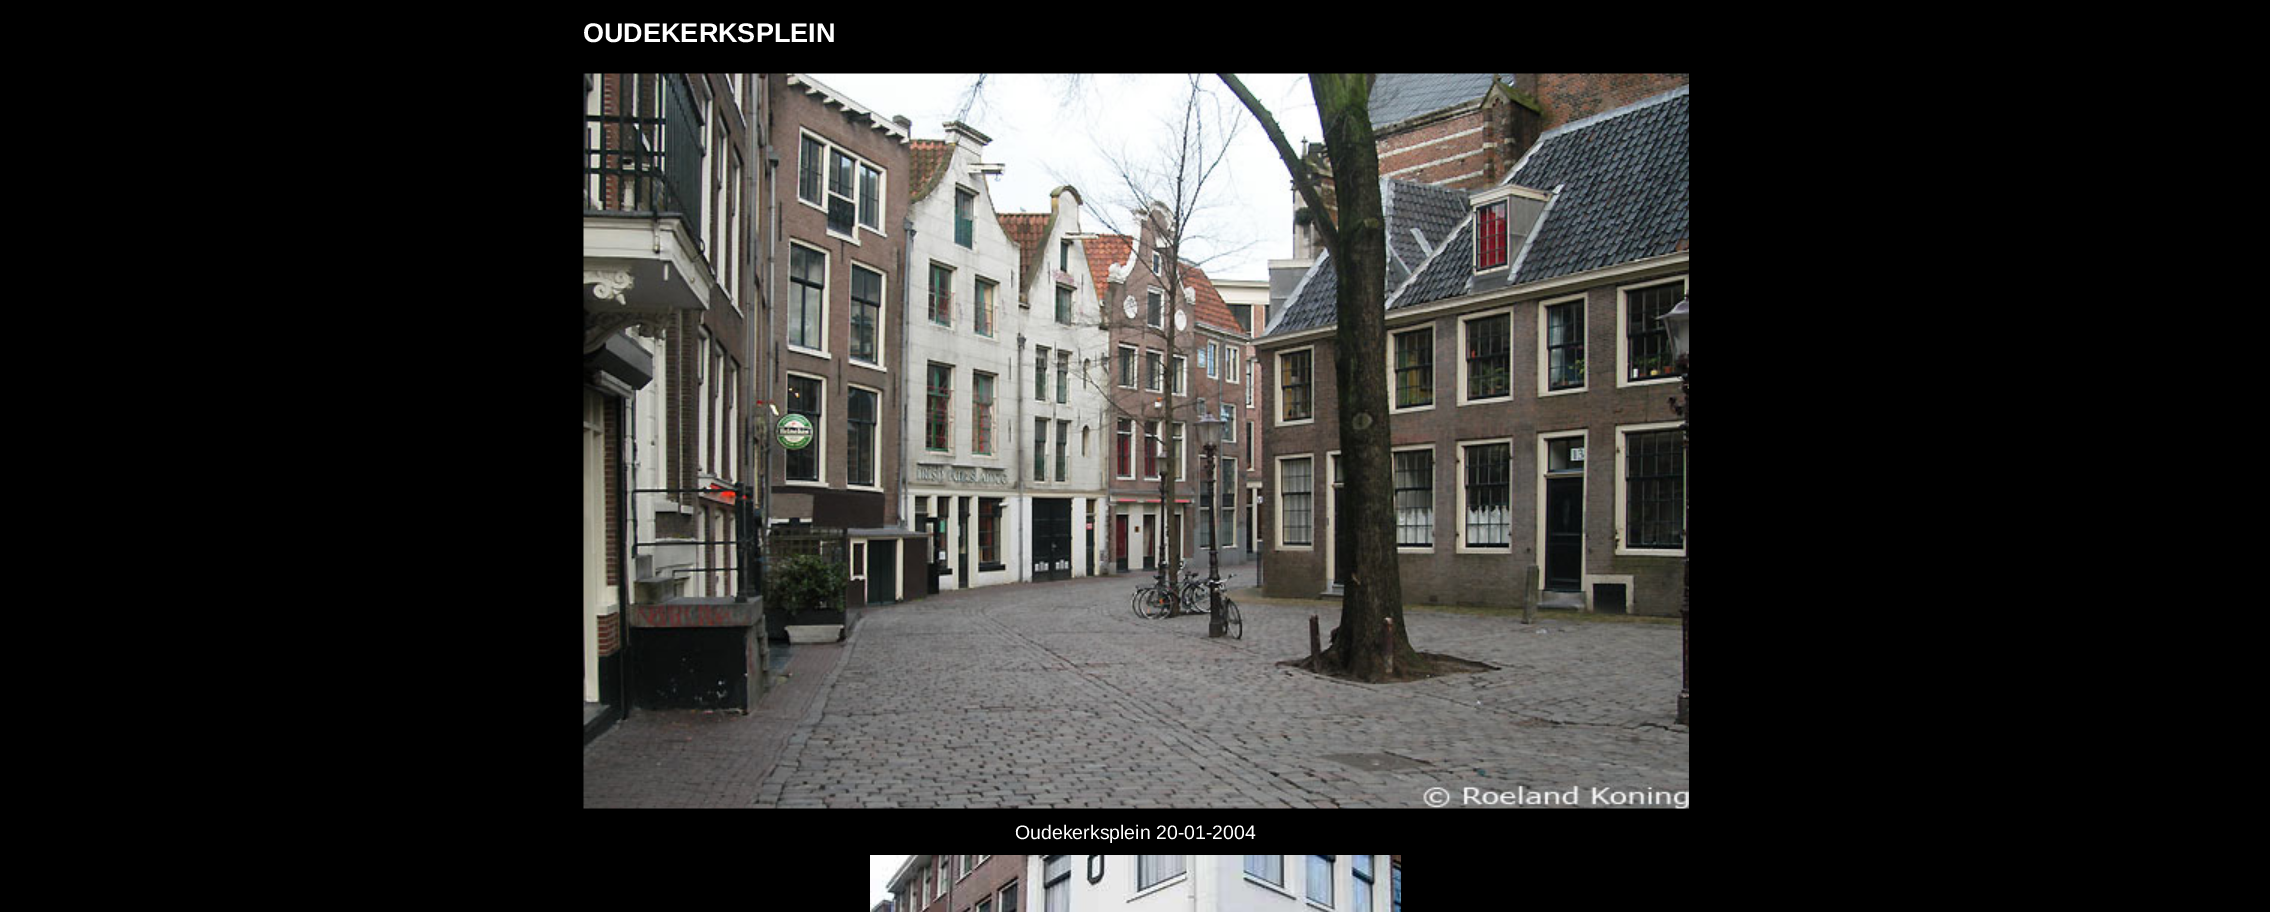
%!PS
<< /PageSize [2270 912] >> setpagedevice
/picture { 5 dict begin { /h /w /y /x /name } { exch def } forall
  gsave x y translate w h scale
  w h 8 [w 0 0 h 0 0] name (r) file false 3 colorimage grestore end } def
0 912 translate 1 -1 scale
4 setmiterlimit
0 setgray
0 0 2270 912 rectfill
/LiberationSans-Bold [27 0 0 -27 0 0] selectfont
1 setgray
583 42 moveto (OUDEKERKSPLEIN) show
(img1.rgb) 583 73 1106 736 picture
/LiberationSans-Regular [19.5 0 0 -19.5 0 0] selectfont
1015 839 moveto (Oudekerksplein 20-01-2004) show
(img2.rgb) 870 855 531 57 picture
showpage
